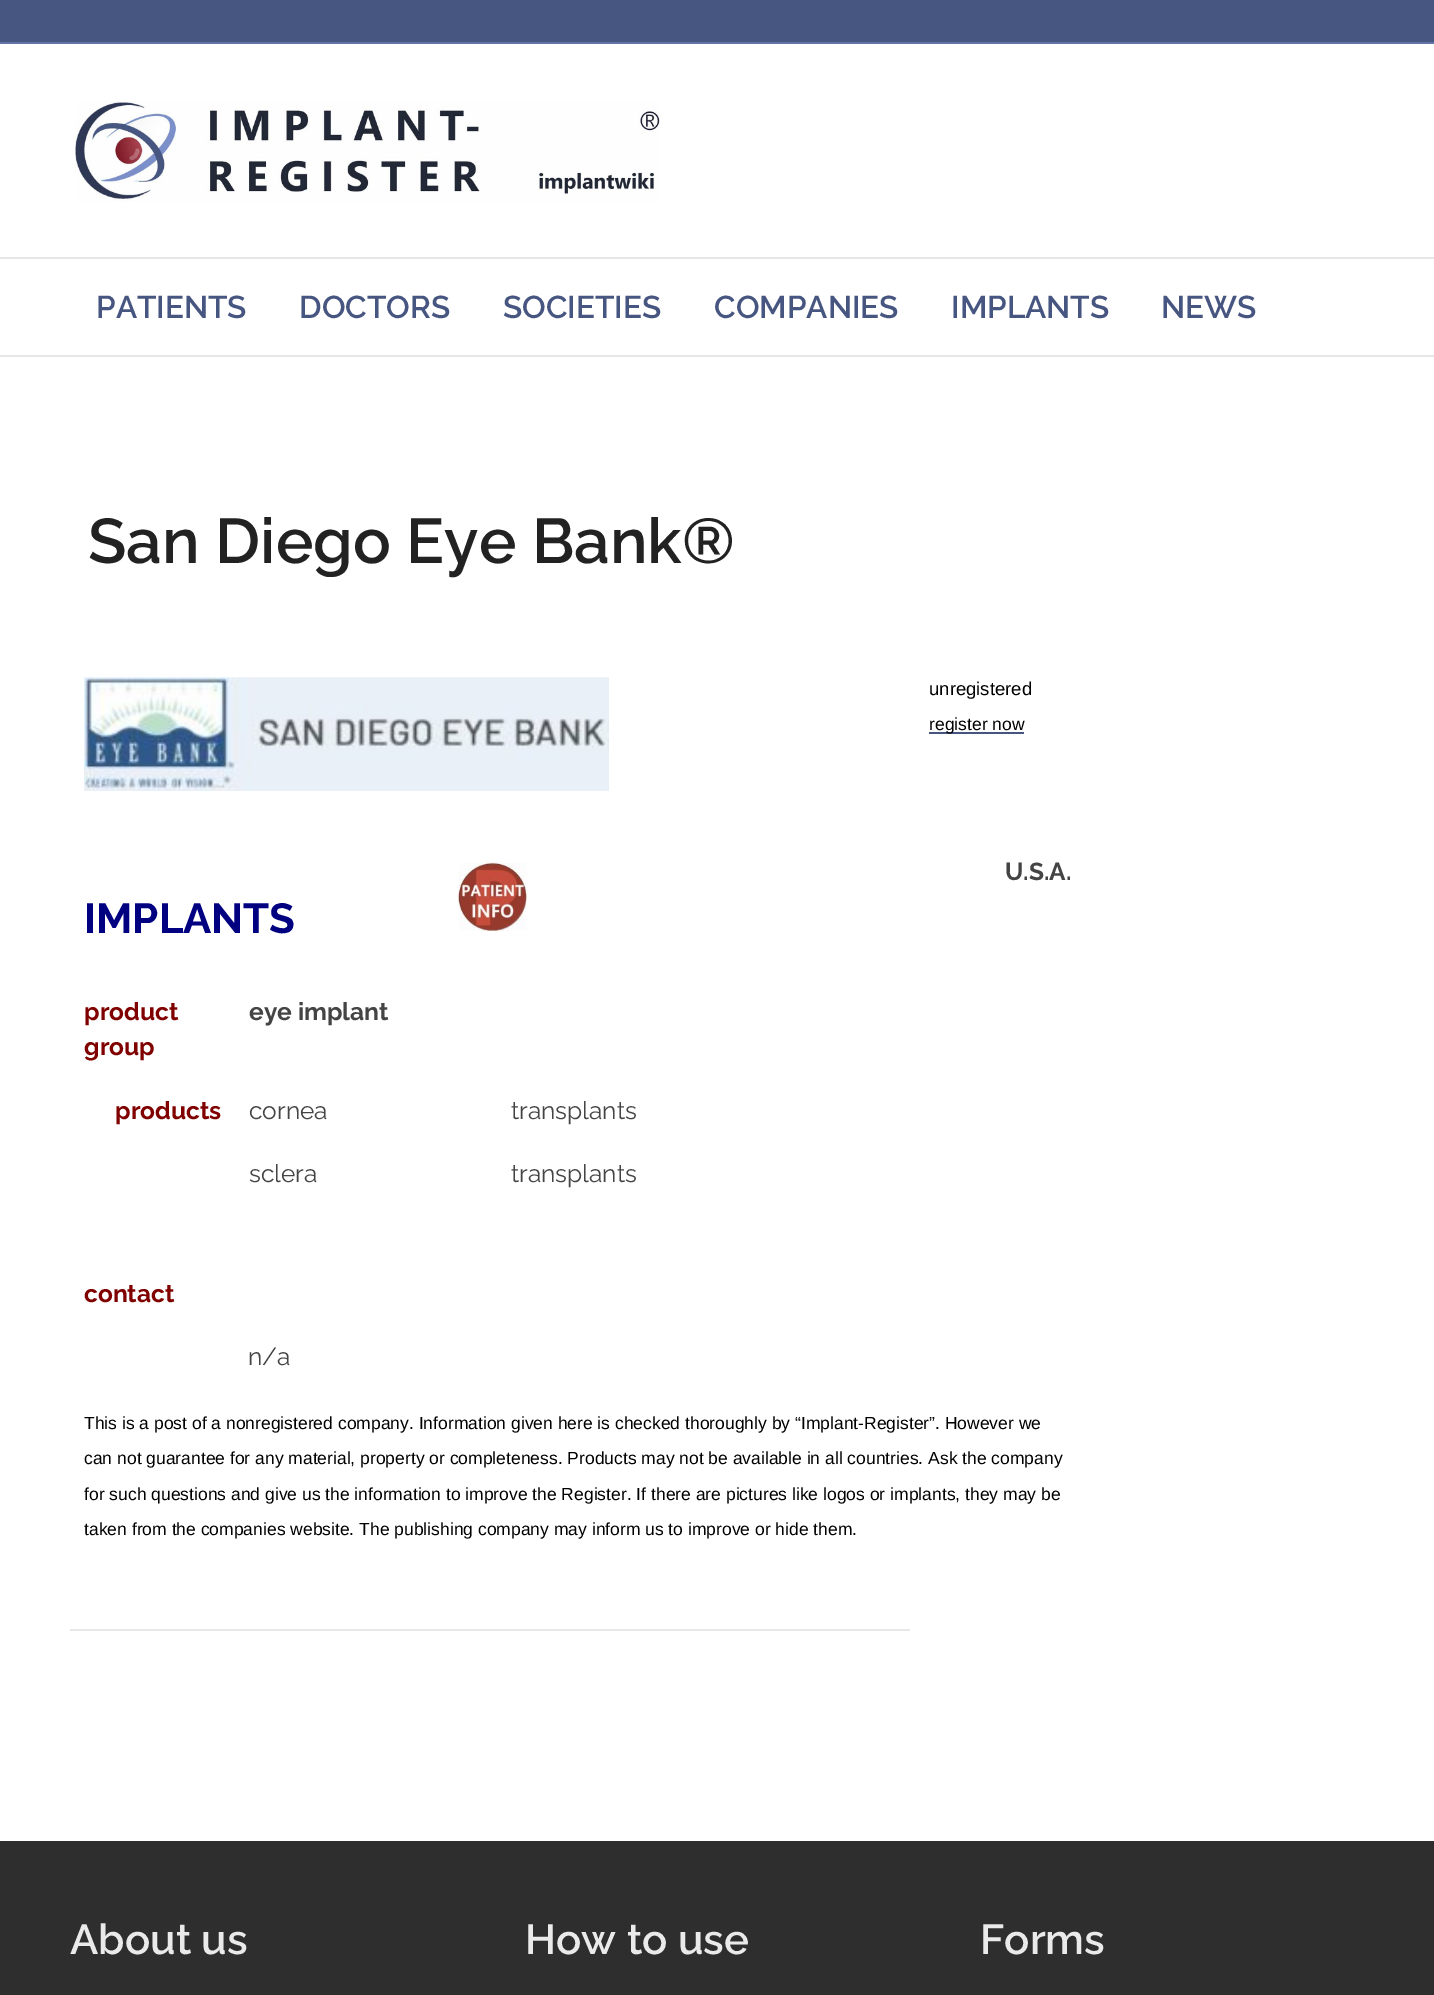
%!PS
<< /PageSize [1434 1995] >> setpagedevice
/picture { 5 dict begin { /h /w /y /x /name } { exch def } forall
  gsave x y translate w h scale
  w h 8 [w 0 0 h 0 0] name (r) file false 3 colorimage grestore end } def
0 1995 translate 1 -1 scale
4 setmiterlimit
1 setgray
0 0 1434 1995 rectfill
0.278 0.337 0.506 setrgbcolor
0 0 1434 42 rectfill
0.384 0.455 0.659 setrgbcolor
0 42 1434 2 rectfill
(img1.rgb) 75 101 585 102 picture
0.902 setgray
0 257 1434 2 rectfill
0 355 1434 2 rectfill
/Raleway-SemiBold [31.5 0 0 -31.5 0 0] selectfont
0.278 0.337 0.506 setrgbcolor
96 318 moveto (PATIENTS) show
299 318 moveto (DOCTORS) show
503 318 moveto (SOCIETIES) show
714 318 moveto (COMPANIES) show
951 318 moveto (IMPLANTS) show
1161 318 moveto (NEWS) show
/Raleway-SemiBold [63 0 0 -63 0 0] selectfont
0.133 setgray
88 563 moveto (San Diego Eye Bank®) show
(img2.rgb) 84 677 525 114 picture
/LiberationSans-Regular [18.5 0 0 -18.5 0 0] selectfont
0 setgray
929 695 moveto (unregistered) show
0.278 0.337 0.506 setrgbcolor
929 732 95 2 rectfill
/LiberationSans-Regular [17.5 0 0 -17.5 0 0] selectfont
0 setgray
929 730 moveto (register now) show
(img3.rgb) 458 862 69 69 picture
/Raleway-Bold [24.5 0 0 -24.5 0 0] selectfont
0.267 setgray
1005 880 moveto (U.S.A.) show
/Raleway-Bold [42 0 0 -42 0 0] selectfont
0 0 0.502 setrgbcolor
84 933 moveto (IMPLANTS) show
/Raleway-Bold [24.5 0 0 -24.5 0 0] selectfont
0.502 0 0 setrgbcolor
84 1020 moveto (product) show
84 1055 moveto (group) show
0.267 setgray
249 1020 moveto (eye implant) show
0.502 0 0 setrgbcolor
115 1119 moveto (products) show
/Raleway-Regular [24.5 0 0 -24.5 0 0] selectfont
0.267 setgray
249 1119 moveto (cornea) show
511 1119 moveto (transplants) show
249 1182 moveto (sclera) show
511 1182 moveto (transplants) show
/Raleway-Bold [24.5 0 0 -24.5 0 0] selectfont
0.502 0 0 setrgbcolor
84 1302 moveto (contact) show
/Raleway-Regular [24.5 0 0 -24.5 0 0] selectfont
0.267 setgray
248 1365 moveto (n/a) show
/LiberationSans-Regular [17.5 0 0 -17.5 0 0] selectfont
0 setgray
84 1429 moveto (This is a post of a nonregistered company. Information given here is checked thoroughly by “Implant-Register”. However we) show
84 1464 moveto (can not guarantee for any material, property or completeness. Products may not be available in all countries. Ask the company) show
84 1500 moveto (for such questions and give us the information to improve the Register. If there are pictures like logos or implants, they may be) show
84 1535 moveto (taken from the companies website. The publishing company may inform us to improve or hide them.) show
0.91 setgray
70 1629 840 2 rectfill
0.18 setgray
0 1841 1434 154 rectfill
/Raleway-SemiBold [42 0 0 -42 0 0] selectfont
0.918 setgray
70 1954 moveto (About us) show
525 1954 moveto (How to use) show
980 1954 moveto (Forms) show
showpage
